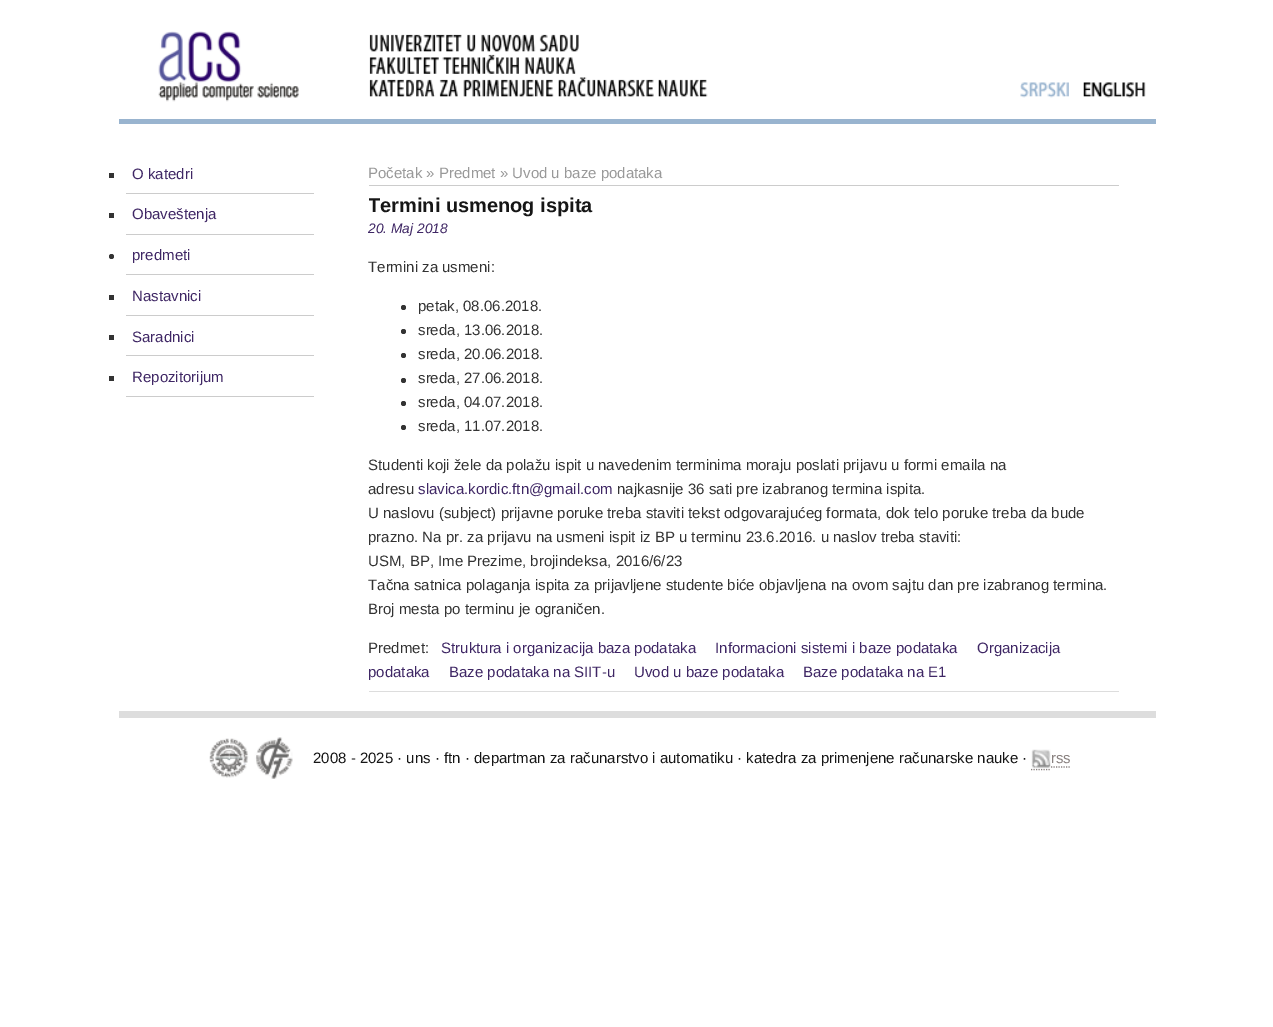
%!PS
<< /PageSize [1273 1027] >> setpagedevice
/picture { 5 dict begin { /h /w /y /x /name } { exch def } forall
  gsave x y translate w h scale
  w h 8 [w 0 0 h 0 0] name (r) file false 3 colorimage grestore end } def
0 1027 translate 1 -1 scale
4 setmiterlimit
1 setgray
0 0 1273 1027 rectfill
0.6 0.706 0.812 setrgbcolor
119 119 1037 5 rectfill
(img1.rgb) 158 31 550 71 picture
(img2.rgb) 1020 82 49 16 picture
(img3.rgb) 1083 82 63 16 picture
0.2 setgray
109 173 5 5 rectfill
0.8 setgray
126 193 188 1 rectfill
/LiberationSans-Regular [15 0 0 -15 0 0] selectfont
0.247 0.153 0.396 setrgbcolor
132 179 moveto (O katedri) show
0.2 setgray
109 213 5 5 rectfill
0.8 setgray
126 234 188 1 rectfill
0.247 0.153 0.396 setrgbcolor
132 219 moveto (Obaveštenja) show
0.2 setgray
newpath 111.5 256.5 2.5 0 360 arc closepath fill
0.8 setgray
126 274 188 1 rectfill
0.247 0.153 0.396 setrgbcolor
132 260 moveto (predmeti) show
0.2 setgray
109 295 5 5 rectfill
0.8 setgray
126 315 188 1 rectfill
0.247 0.153 0.396 setrgbcolor
132 301 moveto (Nastavnici) show
0.2 setgray
109 335 5 5 rectfill
0.8 setgray
126 355 188 1 rectfill
0.247 0.153 0.396 setrgbcolor
132 342 moveto (Saradnici) show
0.2 setgray
109 376 5 5 rectfill
0.8 setgray
126 396 188 1 rectfill
0.247 0.153 0.396 setrgbcolor
132 382 moveto (Repozitorijum) show
0.8 setgray
369 185 750 1 rectfill
0.6 setgray
368 178 moveto (Početak » Predmet » Uvod u baze podataka) show
gsave
369 161 750 550 rectclip
/LiberationSans-Bold [20 0 0 -20 0 0] selectfont
0.086 setgray
368 212 moveto (Termini usmenog ispita) show
grestore
0.867 setgray
369 691 750 1 rectfill
/LiberationSans-Italic [13.75 0 0 -13.75 0 0] selectfont
0.247 0.153 0.396 setrgbcolor
368 233 moveto (20. Maj 2018) show
/LiberationSans-Regular [15 0 0 -15 0 0] selectfont
0.2 setgray
368 272 moveto (Termini za usmeni:) show
newpath 403.5 307.5 2.5 0 360 arc closepath fill
418 311 moveto (petak, 08.06.2018.) show
newpath 403.5 331.5 2.5 0 360 arc closepath fill
418 335 moveto (sreda, 13.06.2018.) show
newpath 403.5 355.5 2.5 0 360 arc closepath fill
418 359 moveto (sreda, 20.06.2018.) show
newpath 403.5 380.5 2.5 0 360 arc closepath fill
418 383 moveto (sreda, 27.06.2018.) show
newpath 403.5 403.5 2.5 0 360 arc closepath fill
418 407 moveto (sreda, 04.07.2018.) show
newpath 403.5 427.5 2.5 0 360 arc closepath fill
418 431 moveto (sreda, 11.07.2018.) show
368 470 moveto (Studenti koji žele da polažu ispit u navedenim terminima moraju poslati prijavu u formi emaila na) show
368 494 moveto (adresu) show
0.247 0.153 0.396 setrgbcolor
418 494 moveto (slavica.kordic.ftn@gmail.com) show
0.2 setgray
617 494 moveto (najkasnije 36 sati pre izabranog termina ispita.) show
368 518 moveto (U naslovu \(subject\) prijavne poruke treba staviti tekst odgovarajućeg formata, dok telo poruke treba da bude) show
368 542 moveto (prazno. Na pr. za prijavu na usmeni ispit iz BP u terminu 23.6.2016. u naslov treba staviti:) show
368 566 moveto (USM, BP, Ime Prezime, brojindeksa, 2016/6/23) show
368 590 moveto (Tačna satnica polaganja ispita za prijavljene studente biće objavljena na ovom sajtu dan pre izabranog termina.) show
368 614 moveto (Broj mesta po terminu je ograničen.) show
368 653 moveto (Predmet:) show
0.247 0.153 0.396 setrgbcolor
441 653 moveto (Struktura i organizacija baza podataka) show
715 653 moveto (Informacioni sistemi i baze podataka) show
977 653 moveto (Organizacija) show
368 677 moveto (podataka) show
449 677 moveto (Baze podataka na SIIT-u) show
634 677 moveto (Uvod u baze podataka) show
803 677 moveto (Baze podataka na E1) show
0.867 setgray
119 711 1037 7 rectfill
(img4.rgb) 209 737 84 42 picture
0.086 setgray
313 763 moveto (2008 - 2025 · uns · ftn · departman za računarstvo i automatiku · katedra za primenjene računarske nauke ·) show
0.537 0.506 0.498 setrgbcolor
1.2 setlinewidth
[1.25 1.25] 0 setdash
newpath 1031 769.5 moveto 1051 769.5 lineto 1051 767 moveto 1071 767 lineto stroke
(img5.rgb) 1031 749 20 20 picture
1051 763 moveto (rss) show
showpage
